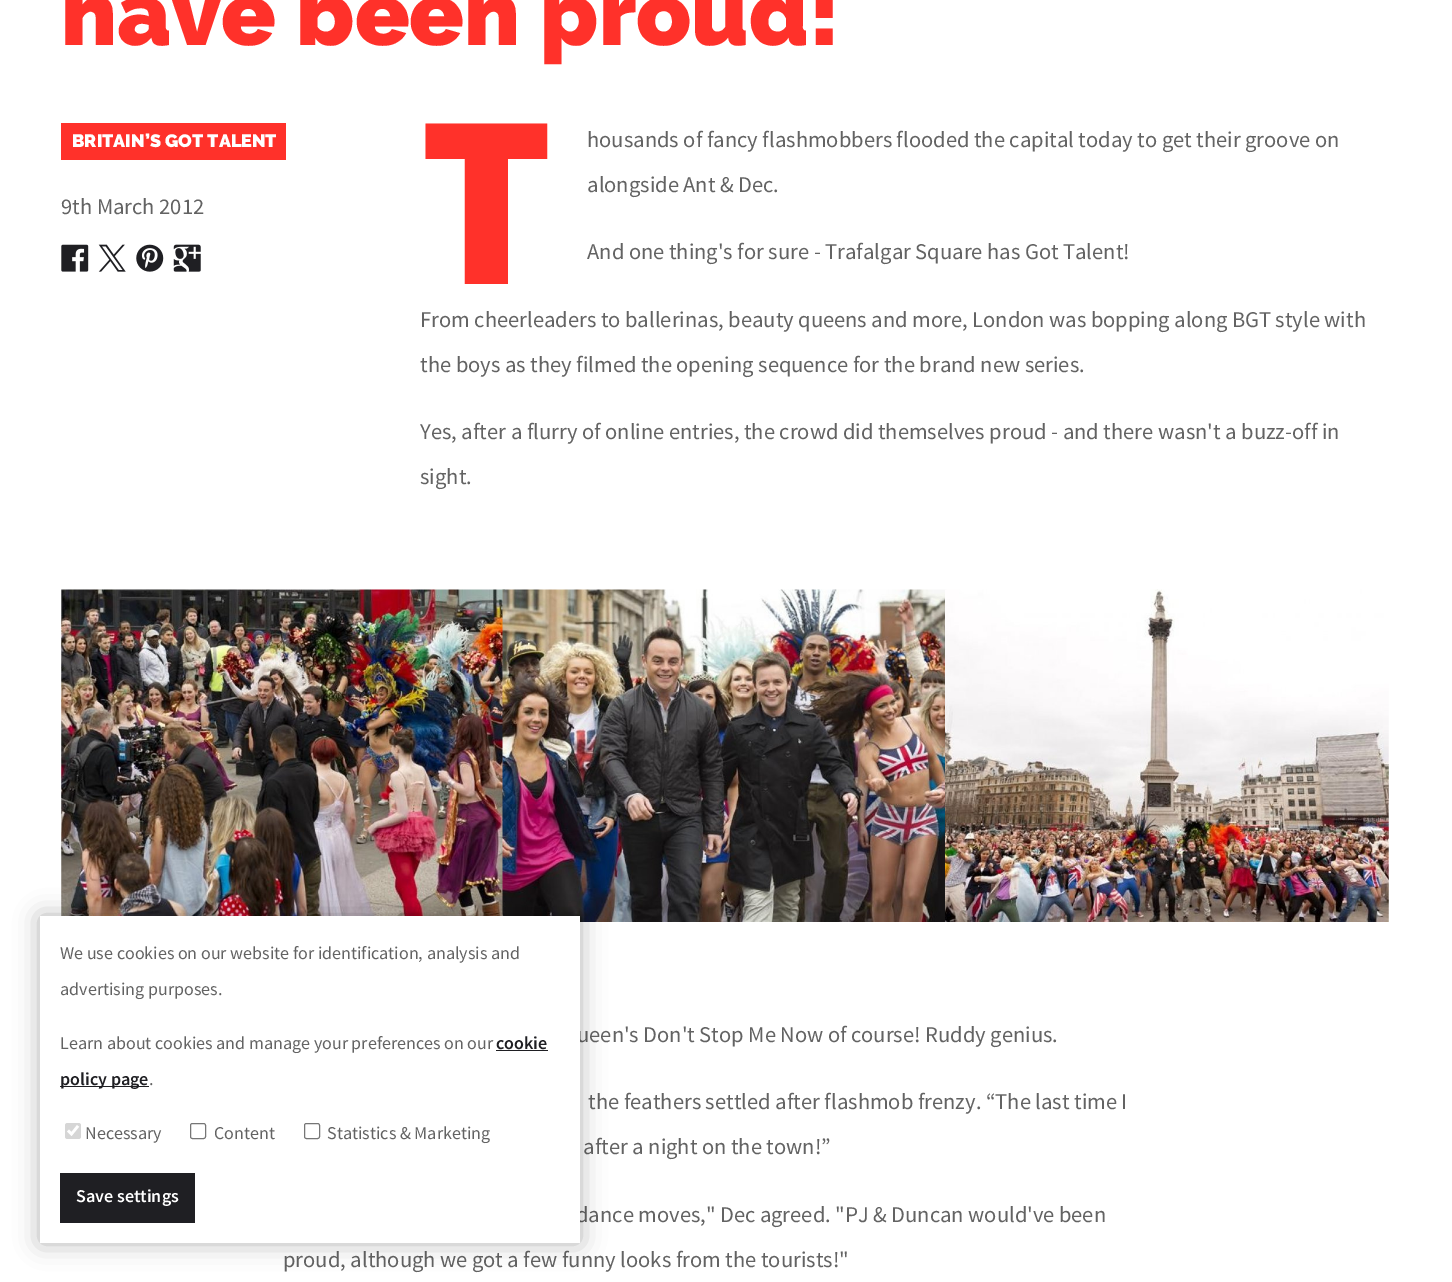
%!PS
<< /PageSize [1452 1282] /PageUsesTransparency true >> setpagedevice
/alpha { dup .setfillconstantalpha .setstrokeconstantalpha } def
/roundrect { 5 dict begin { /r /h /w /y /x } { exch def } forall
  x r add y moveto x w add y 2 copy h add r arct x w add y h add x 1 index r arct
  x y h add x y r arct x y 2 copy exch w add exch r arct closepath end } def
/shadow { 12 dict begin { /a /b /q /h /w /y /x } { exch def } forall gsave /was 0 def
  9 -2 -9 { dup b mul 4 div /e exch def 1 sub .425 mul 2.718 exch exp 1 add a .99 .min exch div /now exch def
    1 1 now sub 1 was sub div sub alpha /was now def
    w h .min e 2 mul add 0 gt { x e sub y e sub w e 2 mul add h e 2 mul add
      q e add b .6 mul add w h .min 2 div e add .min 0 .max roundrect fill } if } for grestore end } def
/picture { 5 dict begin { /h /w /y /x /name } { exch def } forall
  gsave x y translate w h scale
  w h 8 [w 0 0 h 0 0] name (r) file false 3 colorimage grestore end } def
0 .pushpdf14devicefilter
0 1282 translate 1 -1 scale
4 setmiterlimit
1 setgray
0 0 1452 1282 rectfill
/Raleway-Black [90 0 0 -90 0 0] selectfont
1 0.192 0.165 setrgbcolor
61 45 moveto (have been proud!) show
61 123 225 37 rectfill
/Raleway-Black [18 0 0 -18 0 0] selectfont
1 setgray
72 147 moveto (BRITAIN’S GOT TALENT) show
/SourceSansPro-Regular [22.5 0 0 -22.5 0 0] selectfont
0.388 setgray
61 214 moveto (9th March 2012) show
(img1.rgb) 61 244 28 28 picture
(img2.rgb) 98 244 28 28 picture
(img3.rgb) 136 244 28 28 picture
(img4.rgb) 173 244 28 28 picture
/NotoSans-Black [225 0 0 -225 0 0] selectfont
1 0.192 0.165 setrgbcolor
420 284 moveto (T) show
/SourceSansPro-Regular [22.5 0 0 -22.5 0 0] selectfont
0.388 setgray
587 147 moveto (housands of fancy flashmobbers flooded the capital today to get their groove on) show
587 192 moveto (alongside Ant & Dec.) show
587 259 moveto (And one thing's for sure - Trafalgar Square has Got Talent!) show
420 327 moveto (From cheerleaders to ballerinas, beauty queens and more, London was bopping along BGT style with) show
420 372 moveto (the boys as they filmed the opening sequence for the brand new series.) show
420 439 moveto (Yes, after a flurry of online entries, the crowd did themselves proud - and there wasn't a buzz-off in) show
420 484 moveto (sight.) show
(img5.rgb) 61 589 444 327 picture
(img6.rgb) 502 589 445 333 picture
(img7.rgb) 945 589 444 333 picture
577 1042 moveto (ueen's Don't Stop Me Now of course! Ruddy genius.) show
588 1109 moveto (the feathers settled after flashmob frenzy. “The last time I) show
583 1154 moveto (after a night on the town!”) show
576 1222 moveto (dance moves," Dec agreed. "PJ & Duncan would've been) show
283 1267 moveto (proud, although we got a few funny looks from the tourists!") show
0 setgray
40 916 540 327 0 12.5 0.3 shadow
1 setgray
40 916 540 327 rectfill
/SourceSansPro-Regular [18 0 0 -18 0 0] selectfont
0.388 setgray
60 959 moveto (We use cookies on our website for identification, analysis and) show
60 995 moveto (advertising purposes.) show
60 1049 moveto (Learn about cookies and manage your preferences on our) show
/SourceSansPro-SemiBold [18 0 0 -18 0 0] selectfont
0.122 0.122 0.137 setrgbcolor
496 1049 moveto (cookie) show
496 1050 52 1 rectfill
60 1086 89 1 rectfill
60 1085 moveto (policy page) show
/SourceSansPro-Regular [18 0 0 -18 0 0] selectfont
0.388 setgray
149 1085 moveto (.) show
0.839 setgray
65 1123 16 16 2.5 roundrect fill
1 setgray
2.6 setlinewidth
newpath 68 1130.5 moveto 71.5 1134 lineto 78 1126 lineto stroke
0.388 setgray
85 1139 moveto (Necessary) show
0.463 setgray
1 setlinewidth
190.5 1123.5 15 15 2 roundrect stroke
0.388 setgray
214 1139 moveto (Content) show
0.463 setgray
304.5 1123.5 15 15 2 roundrect stroke
0.388 setgray
327 1139 moveto (Statistics & Marketing) show
0.122 0.122 0.137 setrgbcolor
60 1173 135 50 rectfill
/SourceSansPro-SemiBold [18 0 0 -18 0 0] selectfont
1 setgray
76 1202 moveto (Save settings) show
.poppdf14devicefilter showpage
